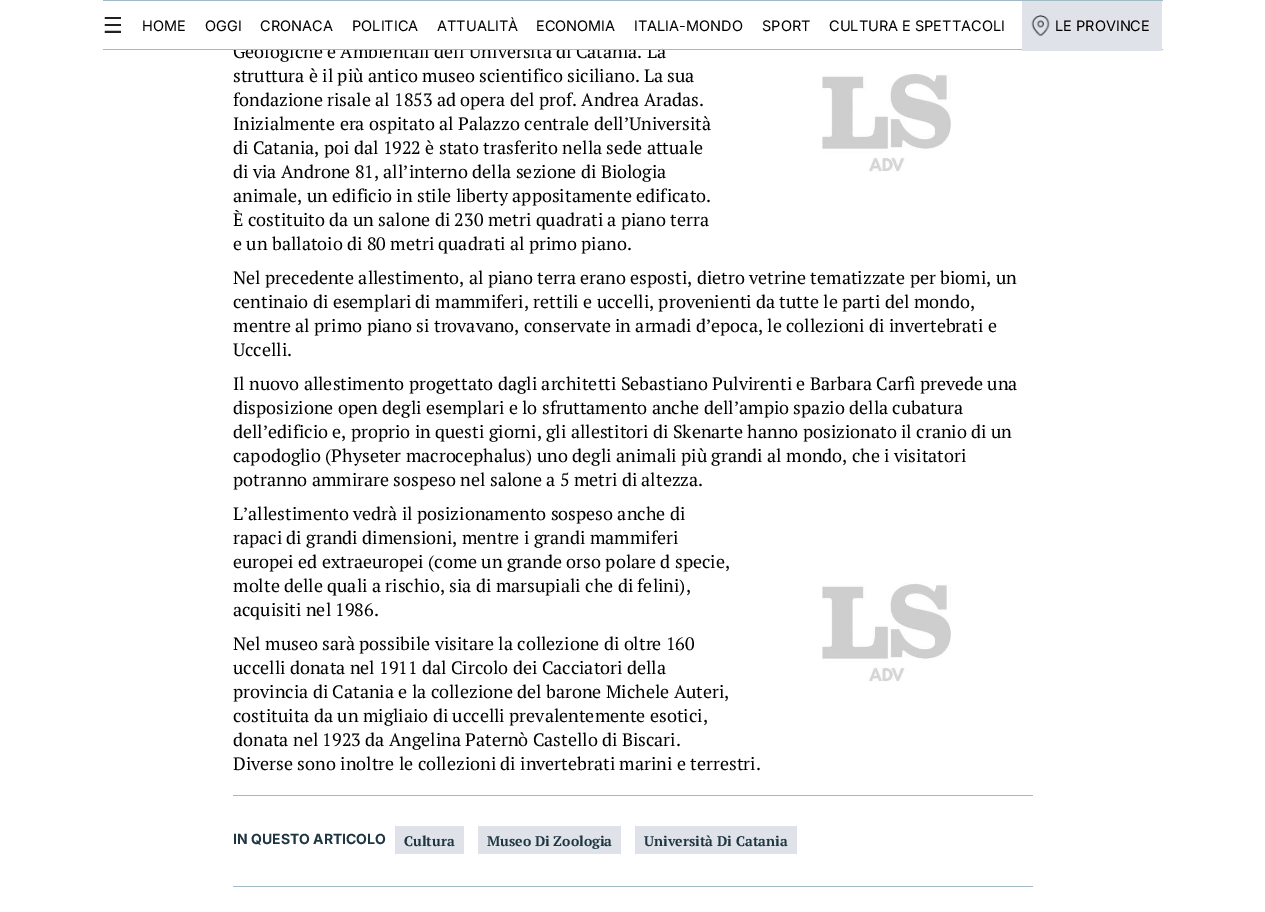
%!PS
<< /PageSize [1265 912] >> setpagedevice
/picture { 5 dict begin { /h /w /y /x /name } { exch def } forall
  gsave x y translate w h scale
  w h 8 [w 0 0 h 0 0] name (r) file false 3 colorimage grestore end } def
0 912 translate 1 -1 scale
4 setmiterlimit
1 setgray
0 0 1265 912 rectfill
/PTSerif-Regular [18 0 0 -18 0 0] selectfont
0 setgray
233 58 moveto (Geologiche e Ambientali dell’Università di Catania. La) show
1 setgray
233 44 429 5 rectfill
0.627 0.729 0.776 setrgbcolor
103 0 1060 1 rectfill
103 49 1060 1 rectfill
/DejaVuSans-Regular [22 0 0 -22 0 0] selectfont
0.129 setgray
103 33 moveto (☰) show
/Inter-Regular [14.5 0 0 -14.5 0 0] selectfont
0 setgray
142 31 moveto (HOME) show
205 31 moveto (OGGI) show
260 31 moveto (CRONACA) show
352 31 moveto (POLITICA) show
437 31 moveto (ATTUALITÀ) show
536 31 moveto (ECONOMIA) show
634 31 moveto (ITALIA-MONDO) show
762 31 moveto (SPORT) show
829 31 moveto (CULTURA E SPETTACOLI) show
0.875 0.89 0.914 setrgbcolor
1022 1 140 50 rectfill
(img1.rgb) 1031 15 19 21 picture
0 setgray
1055 31 moveto (LE PROVINCE) show
/PTSerif-Regular [18 0 0 -18 0 0] selectfont
233 82 moveto (struttura è il più antico museo scientifico siciliano. La sua) show
233 106 moveto (fondazione risale al 1853 ad opera del prof. Andrea Aradas.) show
233 130 moveto (Inizialmente era ospitato al Palazzo centrale dell’Università) show
233 154 moveto (di Catania, poi dal 1922 è stato trasferito nella sede attuale) show
233 178 moveto (di via Androne 81, all’interno della sezione di Biologia) show
233 202 moveto (animale, un edificio in stile liberty appositamente edificato.) show
233 226 moveto (È costituito da un salone di 230 metri quadrati a piano terra) show
233 250 moveto (e un ballatoio di 80 metri quadrati al primo piano.) show
233 284 moveto (Nel precedente allestimento, al piano terra erano esposti, dietro vetrine tematizzate per biomi, un) show
233 308 moveto (centinaio di esemplari di mammiferi, rettili e uccelli, provenienti da tutte le parti del mondo,) show
233 332 moveto (mentre al primo piano si trovavano, conservate in armadi d’epoca, le collezioni di invertebrati e) show
233 356 moveto (Uccelli.) show
233 390 moveto (Il nuovo allestimento progettato dagli architetti Sebastiano Pulvirenti e Barbara Carfì prevede una) show
233 414 moveto (disposizione open degli esemplari e lo sfruttamento anche dell’ampio spazio della cubatura) show
233 438 moveto (dell’edificio e, proprio in questi giorni, gli allestitori di Skenarte hanno posizionato il cranio di un) show
233 462 moveto (capodoglio \(Physeter macrocephalus\) uno degli animali più grandi al mondo, che i visitatori) show
233 486 moveto (potranno ammirare sospeso nel salone a 5 metri di altezza.) show
233 520 moveto (L’allestimento vedrà il posizionamento sospeso anche di) show
233 544 moveto (rapaci di grandi dimensioni, mentre i grandi mammiferi) show
233 568 moveto (europei ed extraeuropei \(come un grande orso polare d specie,) show
233 592 moveto (molte delle quali a rischio, sia di marsupiali che di felini\),) show
233 616 moveto (acquisiti nel 1986.) show
233 650 moveto (Nel museo sarà possibile visitare la collezione di oltre 160) show
233 674 moveto (uccelli donata nel 1911 dal Circolo dei Cacciatori della) show
233 698 moveto (provincia di Catania e la collezione del barone Michele Auteri,) show
233 722 moveto (costituita da un migliaio di uccelli prevalentemente esotici,) show
233 746 moveto (donata nel 1923 da Angelina Paternò Castello di Biscari.) show
233 770 moveto (Diverse sono inoltre le collezioni di invertebrati marini e terrestri.) show
(img2.rgb) 822 583 129 99 picture
(img3.rgb) 822 73 129 99 picture
0.627 0.729 0.776 setrgbcolor
233 795 800 1 rectfill
233 886 800 1 rectfill
/Inter-Bold [14 0 0 -14 0 0] selectfont
0.114 0.212 0.255 setrgbcolor
233 844 moveto (IN QUESTO ARTICOLO) show
0.875 0.89 0.914 setrgbcolor
395 826 69 28 rectfill
/PTSerif-Bold [14 0 0 -14 0 0] selectfont
0.114 0.212 0.255 setrgbcolor
404 846 moveto (Cultura) show
0.875 0.89 0.914 setrgbcolor
478 826 143 28 rectfill
0.114 0.212 0.255 setrgbcolor
487 846 moveto (Museo Di Zoologia) show
0.875 0.89 0.914 setrgbcolor
635 826 162 28 rectfill
0.114 0.212 0.255 setrgbcolor
644 846 moveto (Università Di Catania) show
showpage
